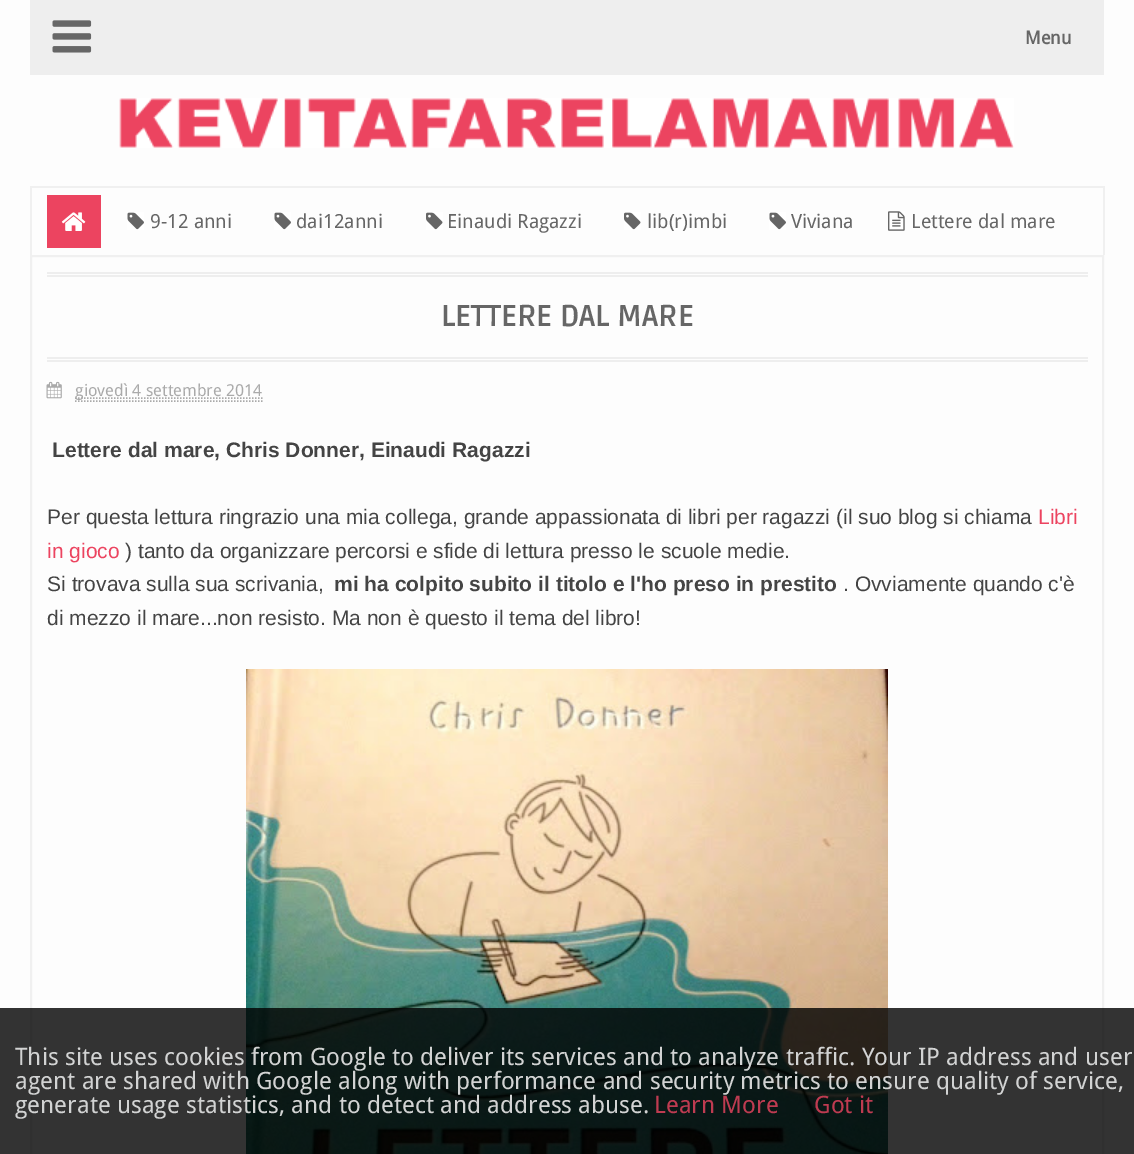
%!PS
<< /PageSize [1134 1154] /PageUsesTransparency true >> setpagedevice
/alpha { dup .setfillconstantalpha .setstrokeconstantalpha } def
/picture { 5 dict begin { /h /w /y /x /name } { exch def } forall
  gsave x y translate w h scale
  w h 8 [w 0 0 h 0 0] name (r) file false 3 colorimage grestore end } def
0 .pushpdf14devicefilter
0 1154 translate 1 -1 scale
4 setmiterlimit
0.992 setgray
0 0 1134 1154 rectfill
0.933 setgray
30 0 1074 75 rectfill
(img1.rgb) 52 20 40 33 picture
/DroidSans-Bold [18 0 0 -18 0 0] selectfont
0.4 setgray
1025 44 moveto (Menu) show
(img2.rgb) 119 98 895 50 picture
0.941 setgray
30 186 1074 2 rectfill
1103 186 2 69 rectfill
30 186 2 69 rectfill
0.925 0.267 0.376 setrgbcolor
47 195 54 53 rectfill
(img3.rgb) 61 212 25 19 picture
(img4.rgb) 127 212 17 18 picture
/DroidSans-Regular [19.5 0 0 -19.5 0 0] selectfont
0.4 setgray
150 228 moveto (9-12 anni) show
(img4.rgb) 274 212 17 18 picture
296 228 moveto (dai12anni) show
(img5.rgb) 426 212 17 18 picture
447 228 moveto (Einaudi Ragazzi) show
(img5.rgb) 624 212 17 18 picture
647 228 moveto (lib\(r\)imbi) show
(img4.rgb) 769 212 17 18 picture
791 228 moveto (Viviana) show
(img6.rgb) 888 211 17 20 picture
911 228 moveto (Lettere dal mare) show
0.941 setgray
2 setlinewidth
31 256 1072 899 rectstroke
0.933 setgray
47 272 1041 2 rectfill
47 275 1041 2 rectfill
47 357 1041 2 rectfill
47 360 1041 2 rectfill
/Ruda-Bold [30 0 0 -30 0 0] selectfont
0.4 setgray
441 326 moveto (LETTERE DAL MARE) show
(img7.rgb) 46 381 16 18 picture
0.667 setgray
1.5 setlinewidth
[1.5 1.5] 0 setdash
newpath 75 398 moveto 262.5 398 lineto stroke
/DroidSans-Regular [16.5 0 0 -16.5 0 0] selectfont
75 396 moveto (giovedì 4 settembre 2014) show
newpath 75 401 moveto 262.5 401 lineto stroke
/LiberationSans-Bold [21 0 0 -21 0 0] selectfont
0.267 setgray
52 457 moveto (Lettere dal mare, Chris Donner, Einaudi Ragazzi) show
/LiberationSans-Regular [21 0 0 -21 0 0] selectfont
47 524 moveto (Per questa lettura ringrazio una mia collega, grande appassionata di libri per ragazzi \(il suo blog si chiama) show
0.925 0.267 0.376 setrgbcolor
1038 524 moveto (Libri) show
47 558 moveto (in gioco) show
0.267 setgray
125 558 moveto (\) tanto da organizzare percorsi e sfide di lettura presso le scuole medie.) show
47 591 moveto (Si trovava sulla sua scrivania,) show
/LiberationSans-Bold [21 0 0 -21 0 0] selectfont
334 591 moveto (mi ha colpito subito il titolo e l'ho preso in prestito) show
/LiberationSans-Regular [21 0 0 -21 0 0] selectfont
843 591 moveto (. Ovviamente quando c'è) show
47 625 moveto (di mezzo il mare...non resisto. Ma non è questo il tema del libro!) show
(img8.rgb) 246 669 642 485 picture
0.8 alpha
0 setgray
0 1008 1134 146 rectfill
/DroidSans-Regular [24 0 0 -24 0 0] selectfont
1 alpha
0.824 0.827 0.827 setrgbcolor
15 1065 moveto (This site uses cookies from Google to deliver its services and to analyze traffic. Your IP address and user) show
15 1089 moveto (agent are shared with Google along with performance and security metrics to ensure quality of service,) show
15 1113 moveto (generate usage statistics, and to detect and address abuse.) show
0.749 0.231 0.318 setrgbcolor
654 1113 moveto (Learn More) show
814 1113 moveto (Got it) show
.poppdf14devicefilter showpage
